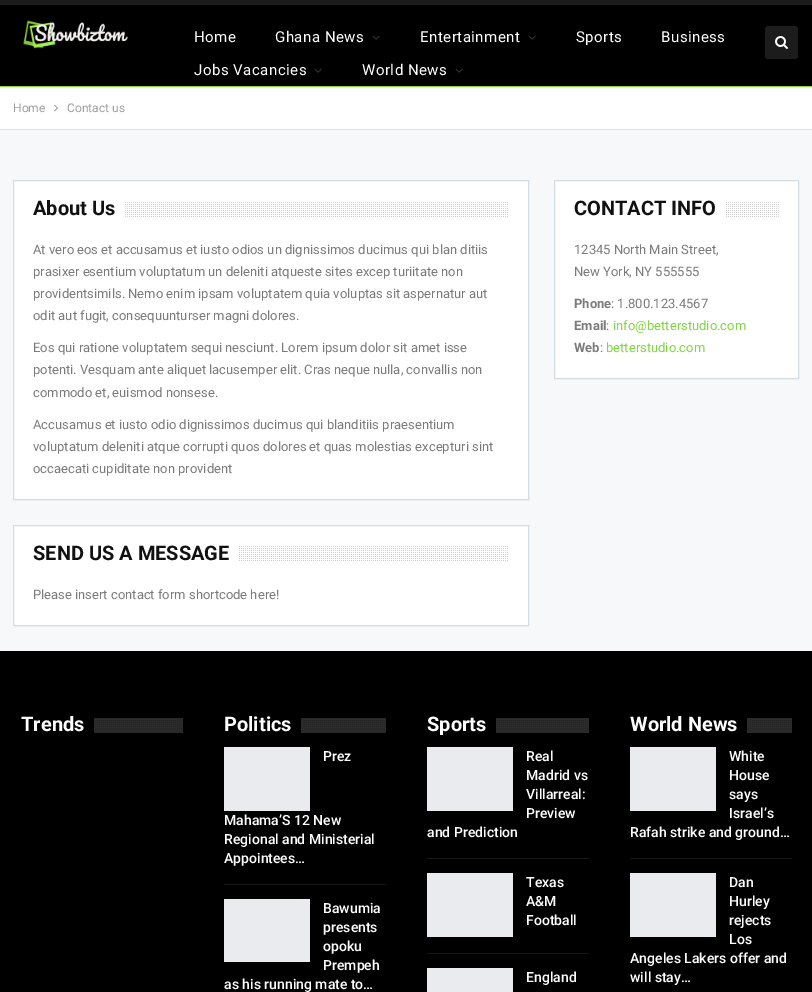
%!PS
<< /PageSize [812 992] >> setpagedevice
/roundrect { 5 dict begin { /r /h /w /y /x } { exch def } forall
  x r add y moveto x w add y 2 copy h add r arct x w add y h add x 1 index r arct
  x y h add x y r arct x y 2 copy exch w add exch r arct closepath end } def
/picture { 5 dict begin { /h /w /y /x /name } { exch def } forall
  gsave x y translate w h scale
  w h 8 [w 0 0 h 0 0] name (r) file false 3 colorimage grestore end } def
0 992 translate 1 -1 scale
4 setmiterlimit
0.965 0.973 0.98 setrgbcolor
0 0 812 992 rectfill
0 setgray
0 5 812 81 rectfill
0.11 setgray
0 0 812 5 rectfill
0.506 0.843 0.259 setrgbcolor
0 86 812 1 rectfill
(img1.rgb) 23 20 105 29 picture
/Roboto-Regular [15 0 0 -15 0 0] selectfont
1 setgray
194 42 moveto 0.5 0 (Home) ashow
275 42 moveto 0.5 0 (Ghana News) ashow
(img2.rgb) 372 35 8 5 picture
420 42 moveto 0.5 0 (Entertainment) ashow
(img2.rgb) 528 35 8 5 picture
576 42 moveto 0.5 0 (Sports) ashow
661 42 moveto 0.5 0 (Business) ashow
194 75 moveto 0.5 0 (Jobs Vacancies) ashow
(img2.rgb) 314 68 8 5 picture
362 75 moveto 0.5 0 (World News) ashow
(img2.rgb) 455 68 8 5 picture
0.11 setgray
765 26 33 33 3 roundrect fill
(img3.rgb) 775 36 13 13 picture
1 setgray
0 87 812 42 rectfill
0.886 setgray
0 129 812 1 rectfill
/Roboto-Regular [12 0 0 -12 0 0] selectfont
0.62 setgray
13 112 moveto (Home) show
(img4.rgb) 54 104 4 8 picture
67 112 moveto (Contact us) show
1 setgray
newpath 13.5 180.5 moveto 528.5 180.5 lineto 528.5 499.5 lineto 13.5 499.5 lineto closepath gsave fill grestore
0.824 0.863 0.89 setrgbcolor
stroke
/Roboto-Bold [20 0 0 -20 0 0] selectfont
0.067 setgray
33 215 moveto (About Us) show
(img5.rgb) 125 202 383 15 picture
/Roboto-Regular [13 0 0 -13 0 0] selectfont
0.482 setgray
33 254 moveto (At vero eos et accusamus et iusto odios un dignissimos ducimus qui blan ditiis) show
33 276 moveto (prasixer esentium voluptatum un deleniti atqueste sites excep turiitate non) show
33 298 moveto (providentsimils. Nemo enim ipsam voluptatem quia voluptas sit aspernatur aut) show
33 320 moveto (odit aut fugit, consequunturser magni dolores.) show
33 352 moveto (Eos qui ratione voluptatem sequi nesciunt. Lorem ipsum dolor sit amet isse) show
33 374 moveto (potenti. Vesquam ante aliquet lacusemper elit. Cras neque nulla, convallis non) show
33 397 moveto (commodo et, euismod nonsese.) show
33 429 moveto (Accusamus et iusto odio dignissimos ducimus qui blanditiis praesentium) show
33 451 moveto (voluptatum deleniti atque corrupti quos dolores et quas molestias excepturi sint) show
33 473 moveto (occaecati cupiditate non provident) show
1 setgray
newpath 13.5 525.5 moveto 528.5 525.5 lineto 528.5 625.5 lineto 13.5 625.5 lineto closepath gsave fill grestore
0.824 0.863 0.89 setrgbcolor
stroke
/Roboto-Bold [20 0 0 -20 0 0] selectfont
0.067 setgray
33 560 moveto (SEND US A MESSAGE) show
(img6.rgb) 239 546 269 15 picture
/Roboto-Regular [13 0 0 -13 0 0] selectfont
0.482 setgray
33 599 moveto (Please insert contact form shortcode here!) show
1 setgray
newpath 554.5 180.5 moveto 798.5 180.5 lineto 798.5 378.5 lineto 554.5 378.5 lineto closepath gsave fill grestore
0.824 0.863 0.89 setrgbcolor
stroke
/Roboto-Bold [20 0 0 -20 0 0] selectfont
0.067 setgray
574 215 moveto (CONTACT INFO) show
(img7.rgb) 726 202 53 15 picture
/Roboto-Regular [13 0 0 -13 0 0] selectfont
0.482 setgray
574 254 moveto (12345 North Main Street,) show
574 276 moveto (New York, NY 555555) show
/Roboto-Bold [13 0 0 -13 0 0] selectfont
574 308 moveto (Phone) show
/Roboto-Regular [13 0 0 -13 0 0] selectfont
611 308 moveto (: 1.800.123.4567) show
/Roboto-Bold [13 0 0 -13 0 0] selectfont
574 330 moveto (Email) show
/Roboto-Regular [13 0 0 -13 0 0] selectfont
606 330 moveto (:) show
0.506 0.843 0.259 setrgbcolor
613 330 moveto (info@betterstudio.com) show
/Roboto-Bold [13 0 0 -13 0 0] selectfont
0.482 setgray
574 352 moveto (Web) show
/Roboto-Regular [13 0 0 -13 0 0] selectfont
600 352 moveto (:) show
0.506 0.843 0.259 setrgbcolor
606 352 moveto (betterstudio.com) show
0 setgray
0 651 812 341 rectfill
/Roboto-Bold [20 0 0 -20 0 0] selectfont
1 setgray
21 731 moveto (Trends) show
(img8.rgb) 94 718 89 15 picture
224 731 moveto (Politics) show
(img9.rgb) 301 718 85 15 picture
0.082 0.086 0.09 setrgbcolor
224 884 162 1 rectfill
0.914 0.922 0.933 setrgbcolor
224 747 86 64 rectfill
/Roboto-Medium [14 0 0 -14 0 0] selectfont
1 setgray
323 761 moveto (Prez) show
224 825 moveto (Mahama’S 12 New) show
224 844 moveto (Regional and Ministerial) show
224 863 moveto (Appointees…) show
0.914 0.922 0.933 setrgbcolor
224 899 86 63 rectfill
1 setgray
323 913 moveto (Bawumia) show
323 932 moveto (presents) show
323 951 moveto (opoku) show
323 970 moveto (Prempeh) show
224 989 moveto (as his running mate to…) show
/Roboto-Bold [20 0 0 -20 0 0] selectfont
427 731 moveto (Sports) show
(img10.rgb) 496 718 93 15 picture
0.082 0.086 0.09 setrgbcolor
427 858 162 1 rectfill
0.914 0.922 0.933 setrgbcolor
427 747 86 64 rectfill
/Roboto-Medium [14 0 0 -14 0 0] selectfont
1 setgray
526 761 moveto (Real) show
526 780 moveto (Madrid vs) show
526 799 moveto (Villarreal:) show
526 818 moveto (Preview) show
427 837 moveto (and Prediction) show
0.082 0.086 0.09 setrgbcolor
427 953 162 1 rectfill
0.914 0.922 0.933 setrgbcolor
427 873 86 64 rectfill
1 setgray
526 887 moveto (Texas) show
526 906 moveto (A&M) show
526 925 moveto (Football) show
0.914 0.922 0.933 setrgbcolor
427 968 86 24 rectfill
1 setgray
526 982 moveto (England) show
/Roboto-Bold [20 0 0 -20 0 0] selectfont
630 731 moveto (World News) show
(img11.rgb) 747 718 45 15 picture
0.082 0.086 0.09 setrgbcolor
630 858 162 1 rectfill
0.914 0.922 0.933 setrgbcolor
630 747 86 64 rectfill
/Roboto-Medium [14 0 0 -14 0 0] selectfont
1 setgray
729 761 moveto (White) show
729 780 moveto (House) show
729 799 moveto (says) show
729 818 moveto (Israel’s) show
630 837 moveto (Rafah strike and ground…) show
0.914 0.922 0.933 setrgbcolor
630 873 86 64 rectfill
1 setgray
729 887 moveto (Dan) show
729 906 moveto (Hurley) show
729 925 moveto (rejects) show
729 944 moveto (Los) show
630 963 moveto (Angeles Lakers offer and) show
630 982 moveto (will stay…) show
showpage
